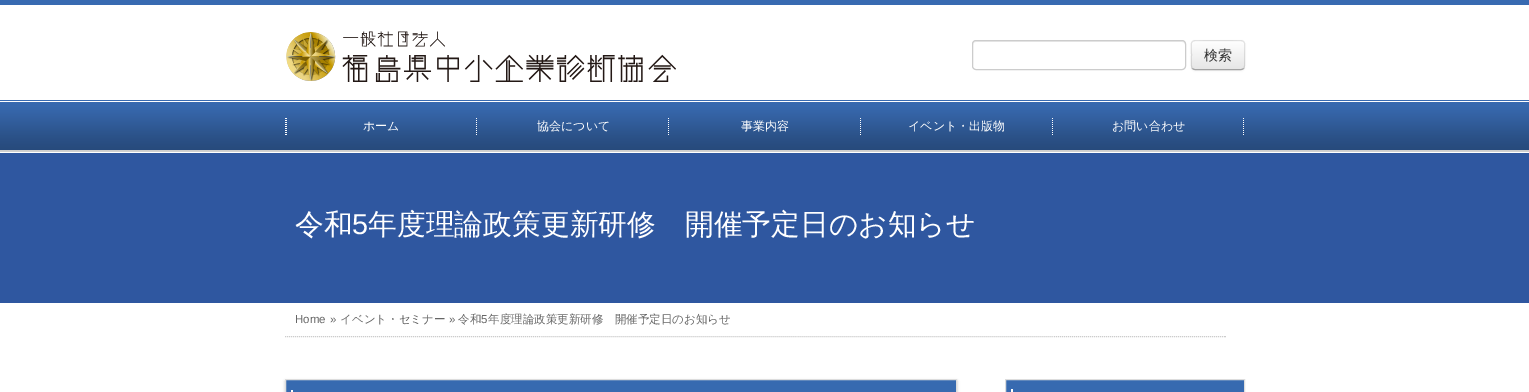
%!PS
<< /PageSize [1529 392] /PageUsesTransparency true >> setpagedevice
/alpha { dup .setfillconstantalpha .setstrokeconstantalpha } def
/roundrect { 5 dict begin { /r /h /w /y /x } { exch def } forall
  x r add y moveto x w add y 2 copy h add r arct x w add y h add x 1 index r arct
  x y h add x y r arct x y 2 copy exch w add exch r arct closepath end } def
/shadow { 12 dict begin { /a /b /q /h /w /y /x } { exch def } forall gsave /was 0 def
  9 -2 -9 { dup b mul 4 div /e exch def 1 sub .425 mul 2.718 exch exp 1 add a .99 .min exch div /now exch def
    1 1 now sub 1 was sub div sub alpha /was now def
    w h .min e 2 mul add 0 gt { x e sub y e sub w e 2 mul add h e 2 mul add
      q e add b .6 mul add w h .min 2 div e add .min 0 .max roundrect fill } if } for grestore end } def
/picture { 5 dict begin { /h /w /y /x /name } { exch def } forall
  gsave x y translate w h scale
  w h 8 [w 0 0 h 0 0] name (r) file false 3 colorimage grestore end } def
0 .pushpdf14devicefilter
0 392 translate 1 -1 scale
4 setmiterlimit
1 setgray
0 0 1529 392 rectfill
(img1.rgb) 0 0 1529 153 picture
(img2.rgb) 286 31 390 51 picture
0.925 setgray
newpath 976 42 moveto 1182 42 lineto 1184 42 1185 43 1185 45 curveto 1185 44 lineto 1185 42 1184 41 1182 41 curveto 976 41 lineto 974 41 973 42 973 44 curveto 973 45 lineto 973 43 974 42 976 42 curveto closepath fill
0.8 setgray
972.5 40.5 213 29 3.5 roundrect stroke
0 setgray
1191 41 54 30 4 1 0.05 shadow
0.961 setgray
1191 40 54 30 4 roundrect fill
gsave
1191 40 54 30 4 roundrect clip newpath
gsave newpath 1191 41 moveto 1245 41 lineto 1245 69 lineto 1191 69 lineto closepath clip newpath
<< /ShadingType 2 /ColorSpace /DeviceRGB /Coords [1218 41 1218 69] /Extend [true true] /Function << /FunctionType 2 /Domain [0 1] /C0 [1 1 1] /C1 [0.902 0.902 0.902] /N 1 >> >> shfill grestore
grestore
1 setgray
newpath 1195 42 moveto 1241 42 lineto 1243 42 1244 43 1244 45 curveto 1244 39 1238 41 1233 41 curveto 1203 41 lineto 1198 41 1192 39 1192 45 curveto 1192 43 1193 42 1195 42 curveto closepath fill
0.635 setgray
newpath 1243.5 68.5 moveto 1243 69 1242 69.5 1241 69.5 curveto 1195 69.5 lineto 1194 69.5 1193 69 1192.5 68.5 curveto stroke
0.1 alpha
0 setgray
newpath 1192.5 68.5 moveto 1190.5 66.5 1191.5 58 1191.5 55 curveto 1191.5 40.5 1188.5 40.5 1202.5 40.5 curveto 1233.5 40.5 lineto 1247.5 40.5 1244.5 40.5 1244.5 55 curveto 1244.5 58 1245.5 66.5 1243.5 68.5 curveto stroke
/WenQuanYiZenHei-Medium [14 0 0 -14 0 0] selectfont
1 alpha
0.2 setgray
1204 60 moveto (検索) show
(img3.rgb) 285 118 2 17 picture
(img4.rgb) 476 118 1 17 picture
/WenQuanYiZenHei-Medium [12 0 0 -12 0 0] selectfont
1 setgray
363 130 moveto (ホーム) show
(img4.rgb) 668 118 1 17 picture
537 130 moveto (協会について) show
(img4.rgb) 860 118 1 17 picture
741 130 moveto (事業内容) show
(img4.rgb) 1052 118 1 17 picture
908 130 moveto (イベント・出版物) show
(img4.rgb) 1243 118 1 17 picture
1112 130 moveto (お問い合わせ) show
0.184 0.341 0.627 setrgbcolor
0 153 1529 150 rectfill
/WenQuanYiZenHei-Medium [28.8 0 0 -28.8 0 0] selectfont
1 setgray
295 234 moveto (令和) show
/LiberationSans-Regular [28.8 0 0 -28.8 0 0] selectfont
352 234 moveto (5) show
/WenQuanYiZenHei-Medium [28.8 0 0 -28.8 0 0] selectfont
368 234 moveto (年度理論政策更新研修　開催予定日のお知らせ) show
0.8 setgray
[1 1] 0 setdash
newpath 285 336.5 moveto 1226 336.5 lineto stroke
/LiberationSans-Regular [11.5 0 0 -11.5 0 0] selectfont
0.4 setgray
295 323 moveto (Home) show
330 323 moveto (») show
/WenQuanYiZenHei-Medium [11.5 0 0 -11.5 0 0] selectfont
340 323 moveto (イベント・セミナー) show
/LiberationSans-Regular [11.5 0 0 -11.5 0 0] selectfont
449 323 moveto (») show
/WenQuanYiZenHei-Medium [11.5 0 0 -11.5 0 0] selectfont
458 323 moveto (令和) show
/LiberationSans-Regular [11.5 0 0 -11.5 0 0] selectfont
481 323 moveto (5) show
/WenQuanYiZenHei-Medium [11.5 0 0 -11.5 0 0] selectfont
488 323 moveto (年度理論政策更新研修　開催予定日のお知らせ) show
0.8 setgray
285 381 672 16 0 1.5 1 shadow
0.216 0.416 0.69 setrgbcolor
286 380 670 12 rectfill
1 setgray
291 390 2 2 rectfill
0.867 setgray
[] 0 setdash
285.5 379.5 671 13 rectstroke
0.216 0.416 0.69 setrgbcolor
1006 380 238 12 rectfill
1 setgray
1011 389 2 3 rectfill
0.867 setgray
1005.5 379.5 239 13 rectstroke
.poppdf14devicefilter showpage
